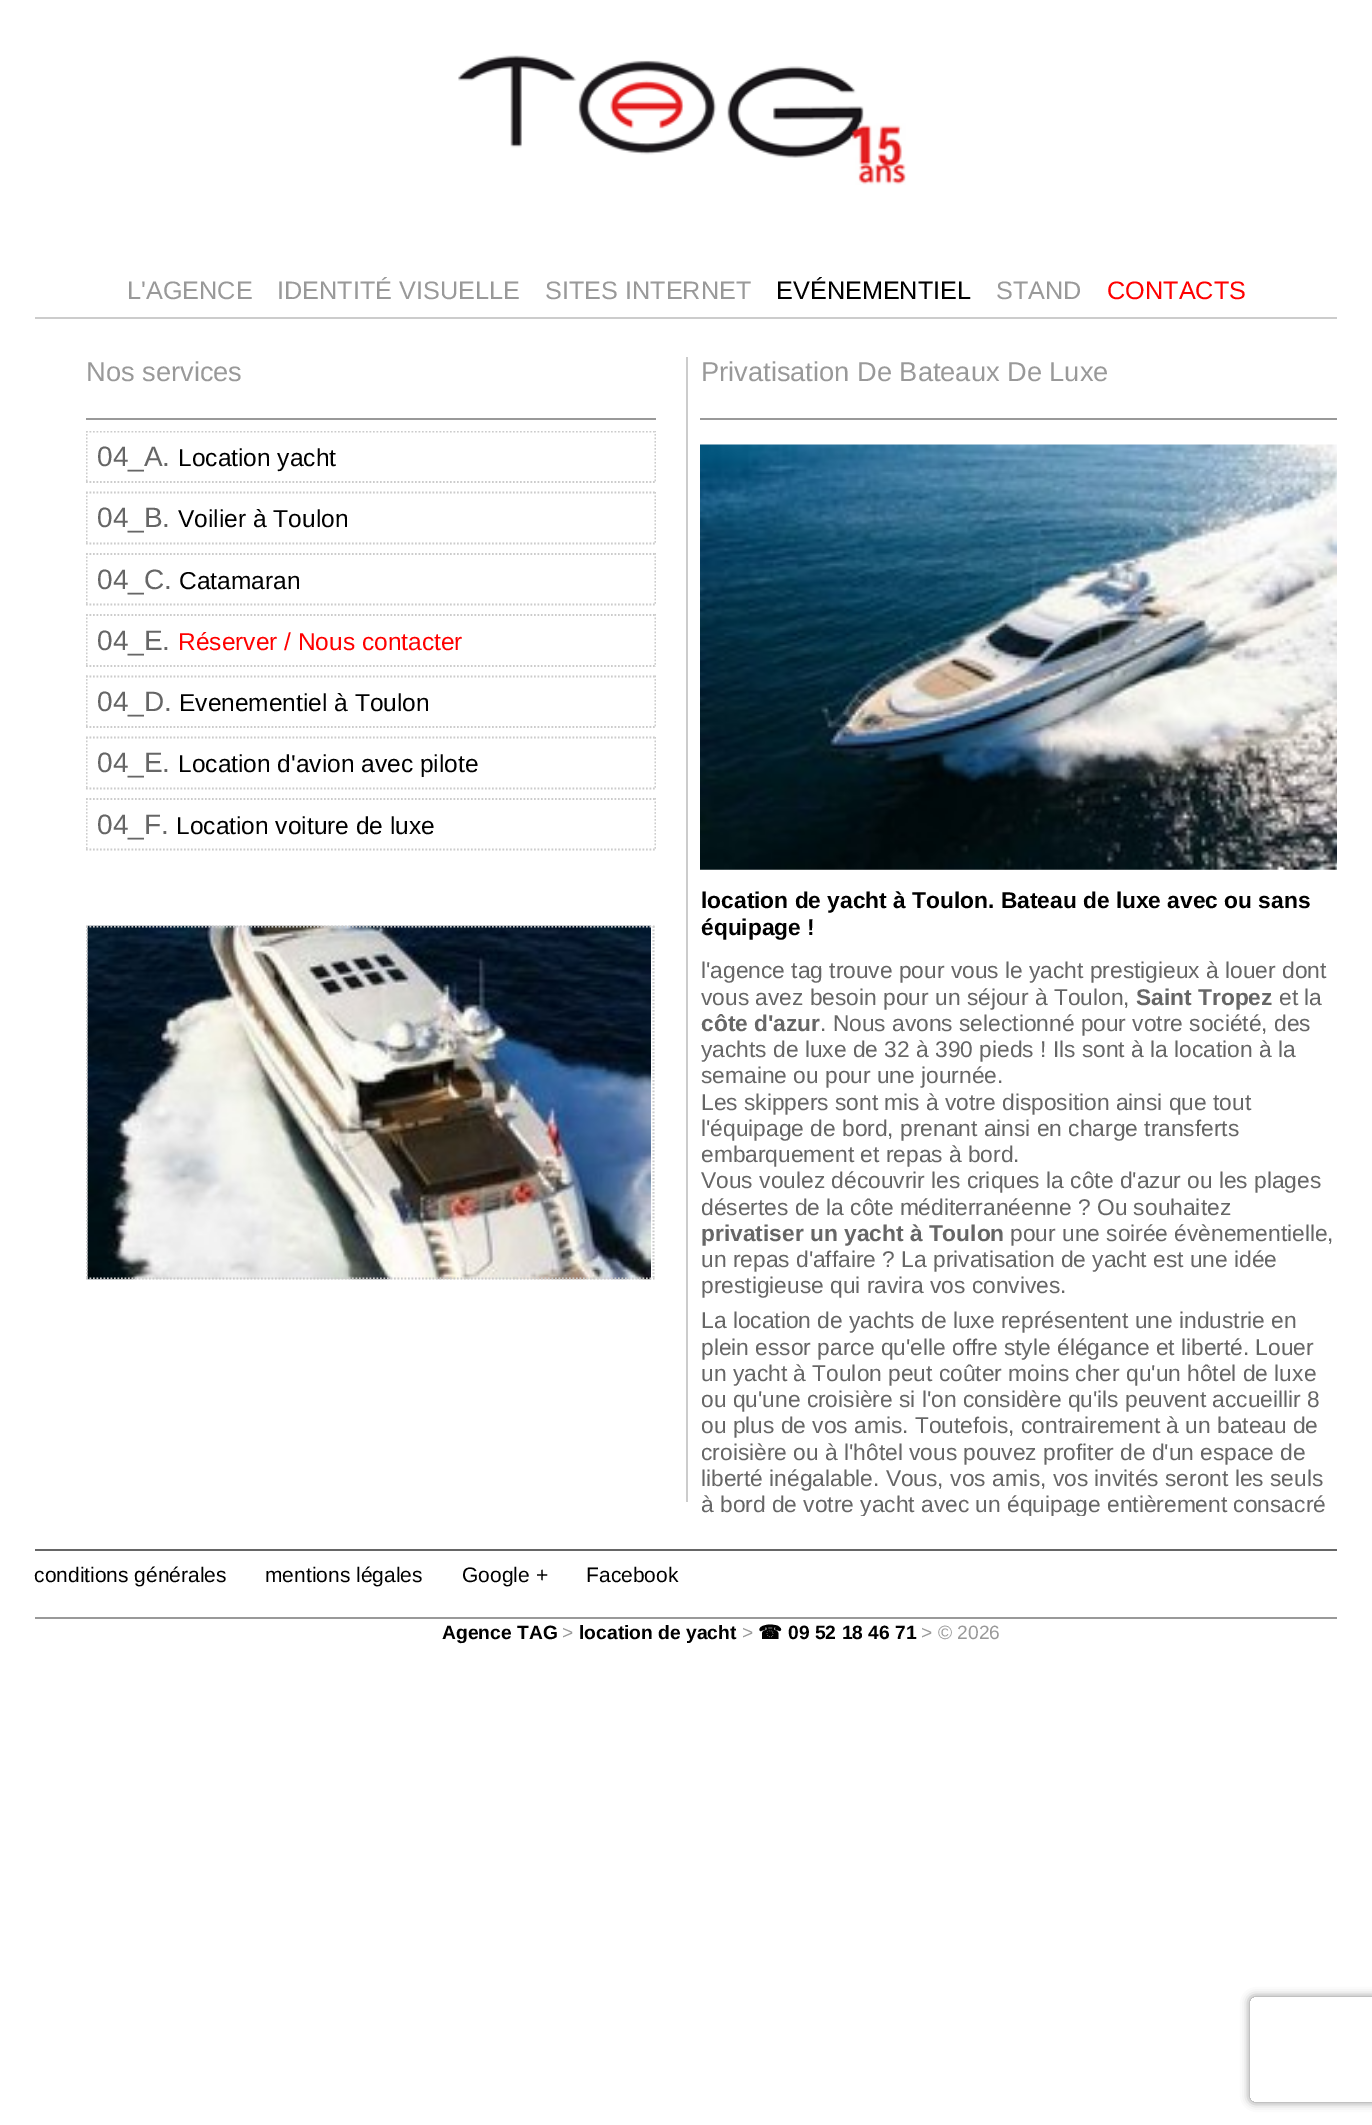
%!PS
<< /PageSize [1372 2125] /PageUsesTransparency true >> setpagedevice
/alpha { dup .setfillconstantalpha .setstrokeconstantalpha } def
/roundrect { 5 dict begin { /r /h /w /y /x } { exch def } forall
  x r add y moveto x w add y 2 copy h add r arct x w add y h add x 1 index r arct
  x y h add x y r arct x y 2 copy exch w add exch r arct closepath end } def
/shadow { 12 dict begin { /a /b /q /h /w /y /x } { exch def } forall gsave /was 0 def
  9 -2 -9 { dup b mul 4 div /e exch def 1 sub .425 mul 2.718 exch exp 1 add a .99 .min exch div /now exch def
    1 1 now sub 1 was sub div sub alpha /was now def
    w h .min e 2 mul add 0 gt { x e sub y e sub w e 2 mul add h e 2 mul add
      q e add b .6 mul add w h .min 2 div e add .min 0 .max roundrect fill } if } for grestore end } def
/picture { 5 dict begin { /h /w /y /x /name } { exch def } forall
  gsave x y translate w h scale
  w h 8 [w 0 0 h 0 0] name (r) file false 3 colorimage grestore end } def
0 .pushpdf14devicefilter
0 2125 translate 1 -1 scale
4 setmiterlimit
1 setgray
0 0 1372 2125 rectfill
0.8 setgray
35 317 1302 2 rectfill
(img1.rgb) 458 55 448 130 picture
/LiberationSans-Regular [25.25 0 0 -25.25 0 0] selectfont
0.6 setgray
127 299 moveto (L'AGENCE) show
277 299 moveto (IDENTITÉ VISUELLE) show
545 299 moveto (SITES INTERNET) show
0 setgray
776 299 moveto (EVÉNEMENTIEL) show
0.6 setgray
996 299 moveto (STAND) show
1 0 0 setrgbcolor
1107 299 moveto (CONTACTS) show
0.6 setgray
86 418 570 2 rectfill
/LiberationSans-Regular [27.25 0 0 -27.25 0 0] selectfont
86 381 moveto (Nos services) show
gsave
86 431 570 428 rectclip
0.8 setgray
1.8 setlinewidth
[1.75 1.75] 0 setdash
newpath 86 431.5 moveto 656 431.5 lineto stroke
newpath 655.5 430.5 moveto 655.5 483 lineto stroke
grestore
0.8 setgray
1.8 setlinewidth
[1.75 1.75] 0 setdash
newpath 86 482 moveto 656 482 lineto stroke
gsave
86 431 570 428 rectclip
newpath 86.5 430.5 moveto 86.5 483 lineto stroke
grestore
/LiberationSans-Regular [28 0 0 -28 0 0] selectfont
0.4 setgray
97 466 moveto (04_A.) show
/LiberationSans-Regular [24.5 0 0 -24.5 0 0] selectfont
0 setgray
178 466 moveto (Location yacht) show
0.8 setgray
newpath 86 492.5 moveto 656 492.5 lineto stroke
gsave
86 431 570 428 rectclip
newpath 655.5 492 moveto 655.5 544 lineto stroke
grestore
newpath 86 543.5 moveto 656 543.5 lineto stroke
gsave
86 431 570 428 rectclip
newpath 86.5 492 moveto 86.5 544 lineto stroke
grestore
/LiberationSans-Regular [28 0 0 -28 0 0] selectfont
0.4 setgray
97 527 moveto (04_B.) show
/LiberationSans-Regular [24.5 0 0 -24.5 0 0] selectfont
0 setgray
178 527 moveto (Voilier à Toulon) show
0.8 setgray
newpath 86 554 moveto 656 554 lineto stroke
gsave
86 431 570 428 rectclip
newpath 655.5 553 moveto 655.5 605.5 lineto stroke
grestore
newpath 86 604.5 moveto 656 604.5 lineto stroke
gsave
86 431 570 428 rectclip
newpath 86.5 553 moveto 86.5 605.5 lineto stroke
grestore
/LiberationSans-Regular [28 0 0 -28 0 0] selectfont
0.4 setgray
97 589 moveto (04_C.) show
/LiberationSans-Regular [24.5 0 0 -24.5 0 0] selectfont
0 setgray
179 589 moveto (Catamaran) show
0.8 setgray
newpath 86 615 moveto 656 615 lineto stroke
gsave
86 431 570 428 rectclip
newpath 655.5 614 moveto 655.5 667 lineto stroke
grestore
newpath 86 666 moveto 656 666 lineto stroke
gsave
86 431 570 428 rectclip
newpath 86.5 614 moveto 86.5 667 lineto stroke
grestore
/LiberationSans-Regular [28 0 0 -28 0 0] selectfont
0.4 setgray
97 650 moveto (04_E.) show
/LiberationSans-Regular [24.5 0 0 -24.5 0 0] selectfont
1 0 0 setrgbcolor
178 650 moveto (Réserver / Nous contacter) show
0.8 setgray
newpath 86 676.5 moveto 656 676.5 lineto stroke
gsave
86 431 570 428 rectclip
newpath 655.5 675.5 moveto 655.5 728 lineto stroke
grestore
newpath 86 727 moveto 656 727 lineto stroke
gsave
86 431 570 428 rectclip
newpath 86.5 675.5 moveto 86.5 728 lineto stroke
grestore
/LiberationSans-Regular [28 0 0 -28 0 0] selectfont
0.4 setgray
97 711 moveto (04_D.) show
/LiberationSans-Regular [24.5 0 0 -24.5 0 0] selectfont
0 setgray
179 711 moveto (Evenementiel à Toulon) show
0.8 setgray
newpath 86 737.5 moveto 656 737.5 lineto stroke
gsave
86 431 570 428 rectclip
newpath 655.5 737 moveto 655.5 789 lineto stroke
grestore
newpath 86 788.5 moveto 656 788.5 lineto stroke
gsave
86 431 570 428 rectclip
newpath 86.5 737 moveto 86.5 789 lineto stroke
grestore
/LiberationSans-Regular [28 0 0 -28 0 0] selectfont
0.4 setgray
97 772 moveto (04_E.) show
/LiberationSans-Regular [24.5 0 0 -24.5 0 0] selectfont
0 setgray
178 772 moveto (Location d'avion avec pilote) show
0.8 setgray
newpath 86 799 moveto 656 799 lineto stroke
gsave
86 431 570 428 rectclip
newpath 655.5 798 moveto 655.5 850.5 lineto stroke
grestore
newpath 86 849.5 moveto 656 849.5 lineto stroke
gsave
86 431 570 428 rectclip
newpath 86.5 798 moveto 86.5 850.5 lineto stroke
grestore
/LiberationSans-Regular [28 0 0 -28 0 0] selectfont
0.4 setgray
97 834 moveto (04_F.) show
/LiberationSans-Regular [24.5 0 0 -24.5 0 0] selectfont
0 setgray
176 834 moveto (Location voiture de luxe) show
(img2.rgb) 87 925 564 355 picture
0.8 setgray
newpath 86 926.5 moveto 654.5 926.5 lineto stroke
newpath 653.5 926 moveto 653.5 1279 lineto stroke
newpath 86 1278.5 moveto 654.5 1278.5 lineto stroke
gsave
86 900 570 584 rectclip
newpath 86.5 926 moveto 86.5 1279 lineto stroke
grestore
686 357 2 1145 rectfill
0.6 setgray
700 418 637 2 rectfill
/LiberationSans-Regular [27.25 0 0 -27.25 0 0] selectfont
701 381 moveto (Privatisation De Bateaux De Luxe) show
(img3.rgb) 700 444 637 426 picture
/LiberationSans-Bold [22.75 0 0 -22.75 0 0] selectfont
0 setgray
701 908 moveto (location de yacht à Toulon. Bateau de luxe avec ou sans) show
701 935 moveto (équipage !) show
/LiberationSans-Regular [22.75 0 0 -22.75 0 0] selectfont
0.4 setgray
701 978 moveto (l'agence tag trouve pour vous le yacht prestigieux à louer dont) show
701 1005 moveto (vous avez besoin pour un séjour à Toulon,) show
/LiberationSans-Bold [22.75 0 0 -22.75 0 0] selectfont
1136 1005 moveto (Saint Tropez) show
/LiberationSans-Regular [22.75 0 0 -22.75 0 0] selectfont
1279 1005 moveto (et la) show
/LiberationSans-Bold [22.75 0 0 -22.75 0 0] selectfont
701 1031 moveto (côte d'azur) show
/LiberationSans-Regular [22.75 0 0 -22.75 0 0] selectfont
820 1031 moveto (. Nous avons selectionné pour votre société, des) show
701 1057 moveto (yachts de luxe de 32 à 390 pieds ! Ils sont à la location à la) show
701 1083 moveto (semaine ou pour une journée.) show
701 1110 moveto (Les skippers sont mis à votre disposition ainsi que tout) show
701 1136 moveto (l'équipage de bord, prenant ainsi en charge transferts) show
701 1162 moveto (embarquement et repas à bord.) show
701 1188 moveto (Vous voulez découvrir les criques la côte d'azur ou les plages) show
701 1215 moveto (désertes de la côte méditerranéenne ? Ou souhaitez) show
/LiberationSans-Bold [22.75 0 0 -22.75 0 0] selectfont
701 1241 moveto (privatiser un yacht à Toulon) show
/LiberationSans-Regular [22.75 0 0 -22.75 0 0] selectfont
1010 1241 moveto (pour une soirée évènementielle,) show
701 1267 moveto (un repas d'affaire ? La privatisation de yacht est une idée) show
701 1293 moveto (prestigieuse qui ravira vos convives.) show
701 1328 moveto (La location de yachts de luxe représentent une industrie en) show
701 1355 moveto (plein essor parce qu'elle offre style élégance et liberté. Louer) show
701 1381 moveto (un yacht à Toulon peut coûter moins cher qu'un hôtel de luxe) show
701 1407 moveto (ou qu'une croisière si l'on considère qu'ils peuvent accueillir 8) show
701 1433 moveto (ou plus de vos amis. Toutefois, contrairement à un bateau de) show
701 1460 moveto (croisière ou à l'hôtel vous pouvez profiter de d'un espace de) show
701 1486 moveto (liberté inégalable. Vous, vos amis, vos invités seront les seuls) show
gsave
700 427 637 1089 rectclip
701 1512 moveto (à bord de votre yacht avec un équipage entièrement consacré) show
grestore
35 1549 1302 2 rectfill
0.6 setgray
35 1617 1302 2 rectfill
/LiberationSans-Regular [21 0 0 -21 0 0] selectfont
0 setgray
34 1582 moveto (conditions générales) show
265 1582 moveto (mentions légales) show
462 1582 moveto (Google +) show
586 1582 moveto (Facebook) show
/LiberationSans-Bold [19.25 0 0 -19.25 0 0] selectfont
442 1639 moveto (Agence TAG) show
/LiberationSans-Regular [19.25 0 0 -19.25 0 0] selectfont
0.6 setgray
562 1639 moveto (>) show
/LiberationSans-Bold [19.25 0 0 -19.25 0 0] selectfont
0 setgray
579 1639 moveto (location de yacht) show
/LiberationSans-Regular [19.25 0 0 -19.25 0 0] selectfont
0.6 setgray
742 1639 moveto (>) show
/DejaVuSans-Bold [19.25 0 0 -19.25 0 0] selectfont
0 setgray
758 1639 moveto (☎) show
/LiberationSans-Bold [19.25 0 0 -19.25 0 0] selectfont
788 1639 moveto (09 52 18 46 71) show
/LiberationSans-Regular [19.25 0 0 -19.25 0 0] selectfont
0.6 setgray
921 1639 moveto (> © 2026) show
gsave
newpath 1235 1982 moveto 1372 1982 lineto 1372 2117 lineto 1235 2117 lineto closepath 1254 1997 moveto 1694 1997 lineto 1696 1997 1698 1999 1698 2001 curveto 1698 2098 lineto 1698 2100 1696 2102 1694 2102 curveto 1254 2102 lineto 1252 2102 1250 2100 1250 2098 curveto 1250 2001 lineto 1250 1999 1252 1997 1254 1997 curveto closepath eoclip newpath
0.502 setgray
1250 1997 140 105 4 4.5 1 shadow
grestore
.poppdf14devicefilter showpage
